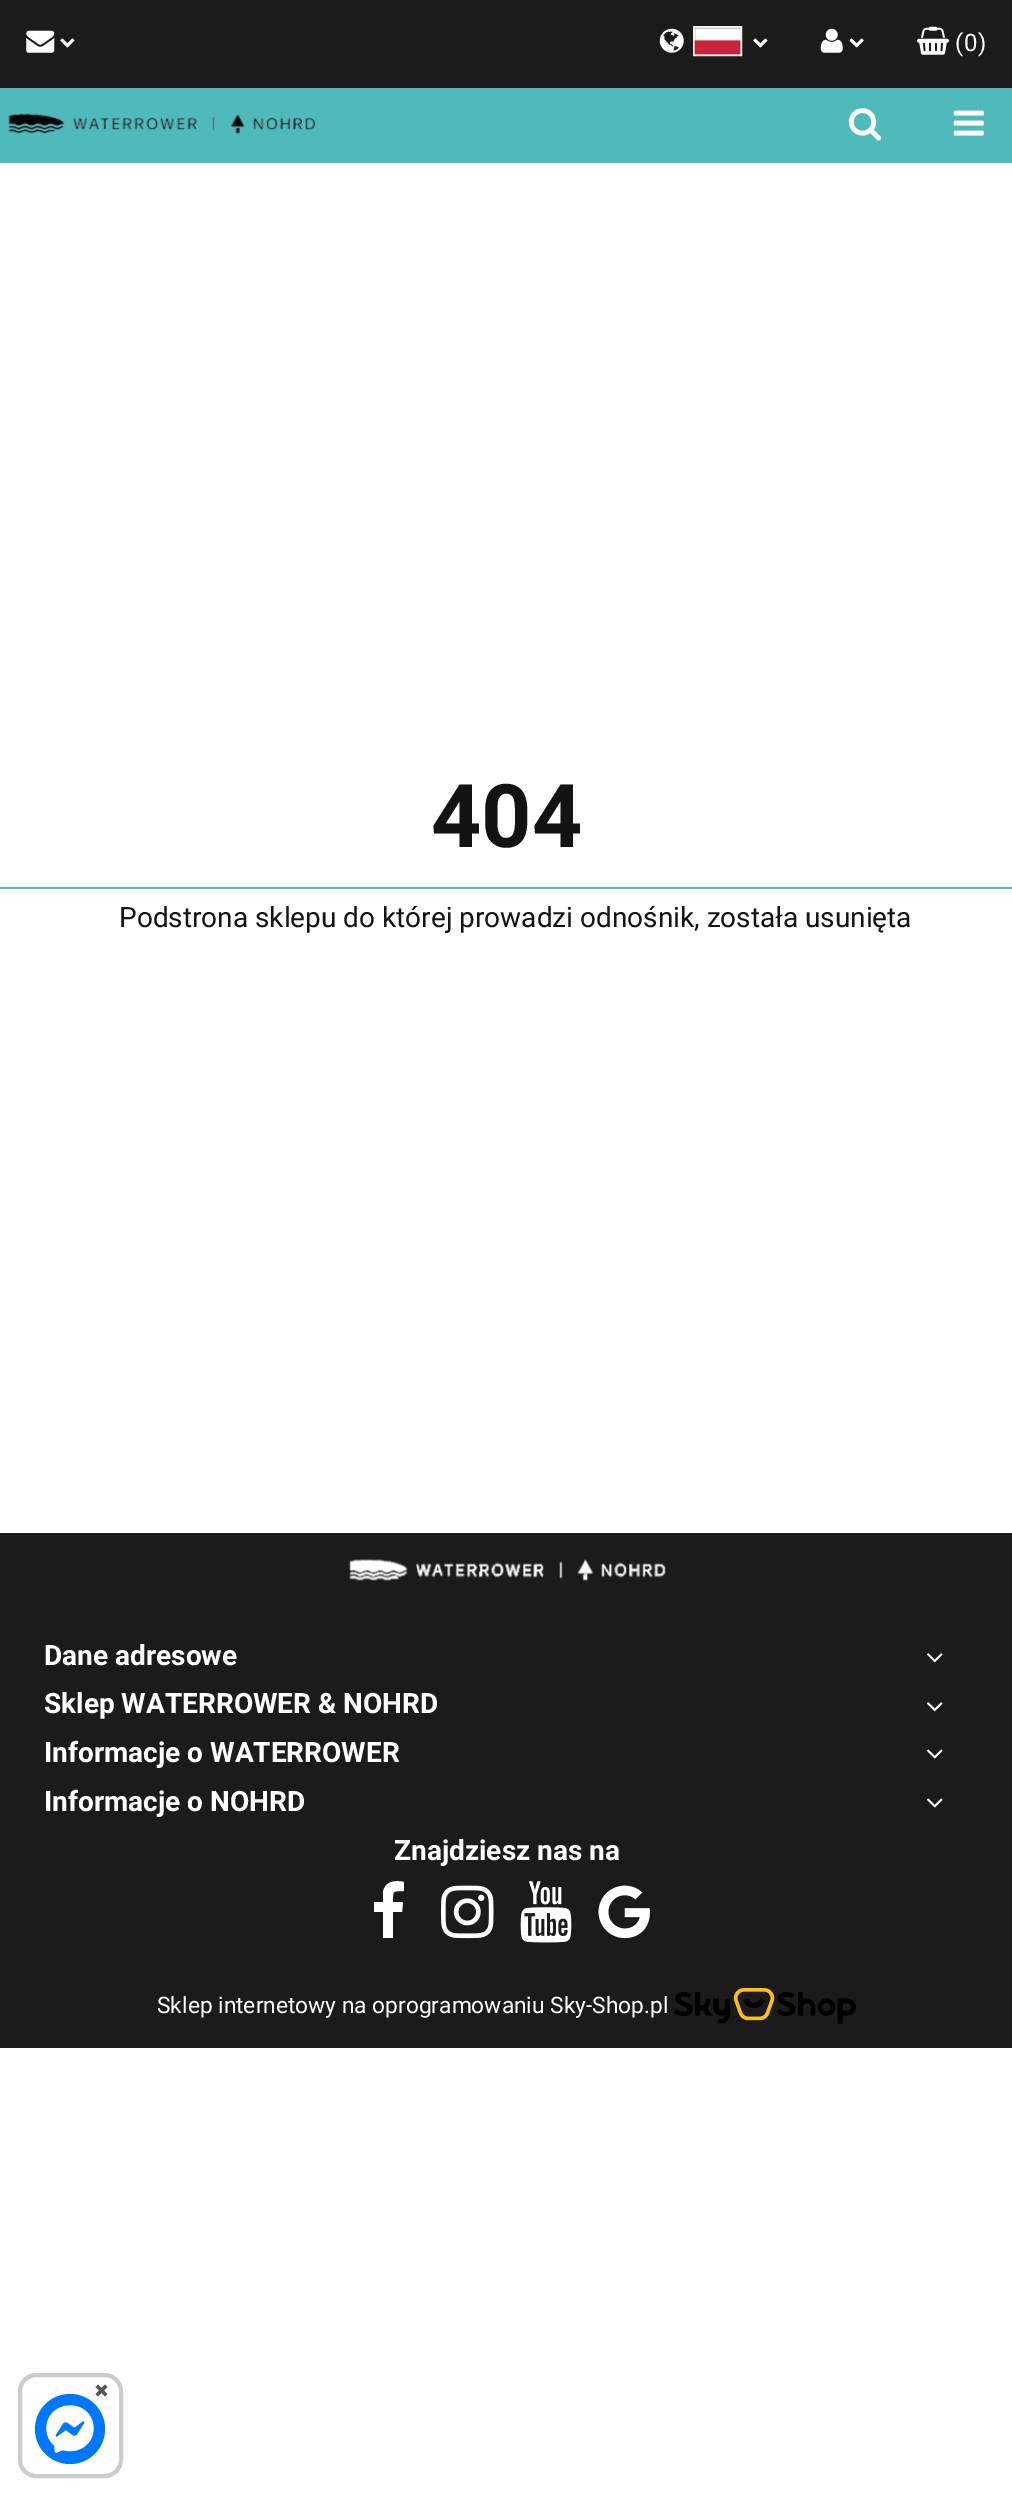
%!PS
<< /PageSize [1012 2494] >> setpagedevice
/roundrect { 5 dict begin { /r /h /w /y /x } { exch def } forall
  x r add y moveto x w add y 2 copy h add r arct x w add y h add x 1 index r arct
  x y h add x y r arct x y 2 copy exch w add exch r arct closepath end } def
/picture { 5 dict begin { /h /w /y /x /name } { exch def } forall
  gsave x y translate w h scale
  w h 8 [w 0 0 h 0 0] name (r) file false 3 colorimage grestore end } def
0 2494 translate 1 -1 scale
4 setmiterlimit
1 setgray
0 0 1012 2494 rectfill
0.106 setgray
0 0 1012 88 rectfill
(img1.rgb) 26 30 29 23 picture
(img2.rgb) 60 38 15 10 picture
(img3.rgb) 659 28 25 25 picture
0.937 setgray
2 setlinewidth
694 27 47 28 rectstroke
(img4.rgb) 694 28 47 27 picture
(img2.rgb) 753 38 15 10 picture
(img5.rgb) 820 28 23 25 picture
(img6.rgb) 849 38 15 10 picture
(img7.rgb) 917 26 32 29 picture
/Roboto-Regular [24 0 0 -24 0 0] selectfont
1 setgray
955 51 moveto (\() show
964 51 moveto (0) show
978 51 moveto (\)) show
0.306 0.729 0.733 setrgbcolor
0 88 1012 75 rectfill
(img8.rgb) 8 113 308 21 picture
(img9.rgb) 848 108 34 33 picture
(img10.rgb) 953 110 31 26 picture
0 887 1012 2 rectfill
/Roboto-Bold [88 0 0 -88 0 0] selectfont
0.075 setgray
431 847 moveto (404) show
/Roboto-Regular [28 0 0 -28 0 0] selectfont
119 927 moveto (Podstrona sklepu do której prowadzi odnośnik, została usunięta) show
0.106 setgray
0 1533 1012 515 rectfill
(img11.rgb) 349 1559 317 22 picture
/Roboto-Bold [28 0 0 -28 0 0] selectfont
1 setgray
44 1665 moveto (Dane adresowe) show
(img12.rgb) 927 1653 16 10 picture
44 1713 moveto (Sklep WATERROWER & NOHRD) show
(img12.rgb) 927 1702 16 10 picture
44 1762 moveto (Informacje o WATERROWER) show
(img13.rgb) 927 1749 16 10 picture
44 1811 moveto (Informacje o NOHRD) show
(img13.rgb) 927 1798 16 10 picture
394 1860 moveto (Znajdziesz nas na) show
newpath 404 1882 moveto 404 1891 lineto 392 1891 393 1891 393 1902 curveto 403 1902 lineto 402 1912 lineto 393 1912 lineto 393 1938 lineto 383 1938 lineto 383 1912 lineto 374 1912 lineto 374 1902 lineto 383 1902 lineto 383 1892 lineto 385 1881 395 1880 404 1882 curveto closepath fill
(img14.rgb) 441 1885 53 54 picture
(img15.rgb) 520 1881 52 62 picture
(img16.rgb) 598 1885 52 54 picture
/Roboto-Regular [22.75 0 0 -22.75 0 0] selectfont
157 2013 moveto (Sklep internetowy na oprogramowaniu Sky-Shop.pl) show
(img17.rgb) 674 1988 182 36 picture
0.8 setgray
4 setlinewidth
20 2375 101 101 16 roundrect stroke
0 0.467 1 setrgbcolor
newpath 70 2429 35 0 360 arc closepath fill
0.333 setgray
newpath 105 2384.5 moveto 107.5 2387 lineto 98 2396.5 lineto 95.5 2394 lineto closepath fill
newpath 95.5 2387 moveto 98 2384.5 lineto 107.5 2394 lineto 105 2396.5 lineto closepath fill
(img18.rgb) 46 2405 48 48 picture
showpage
